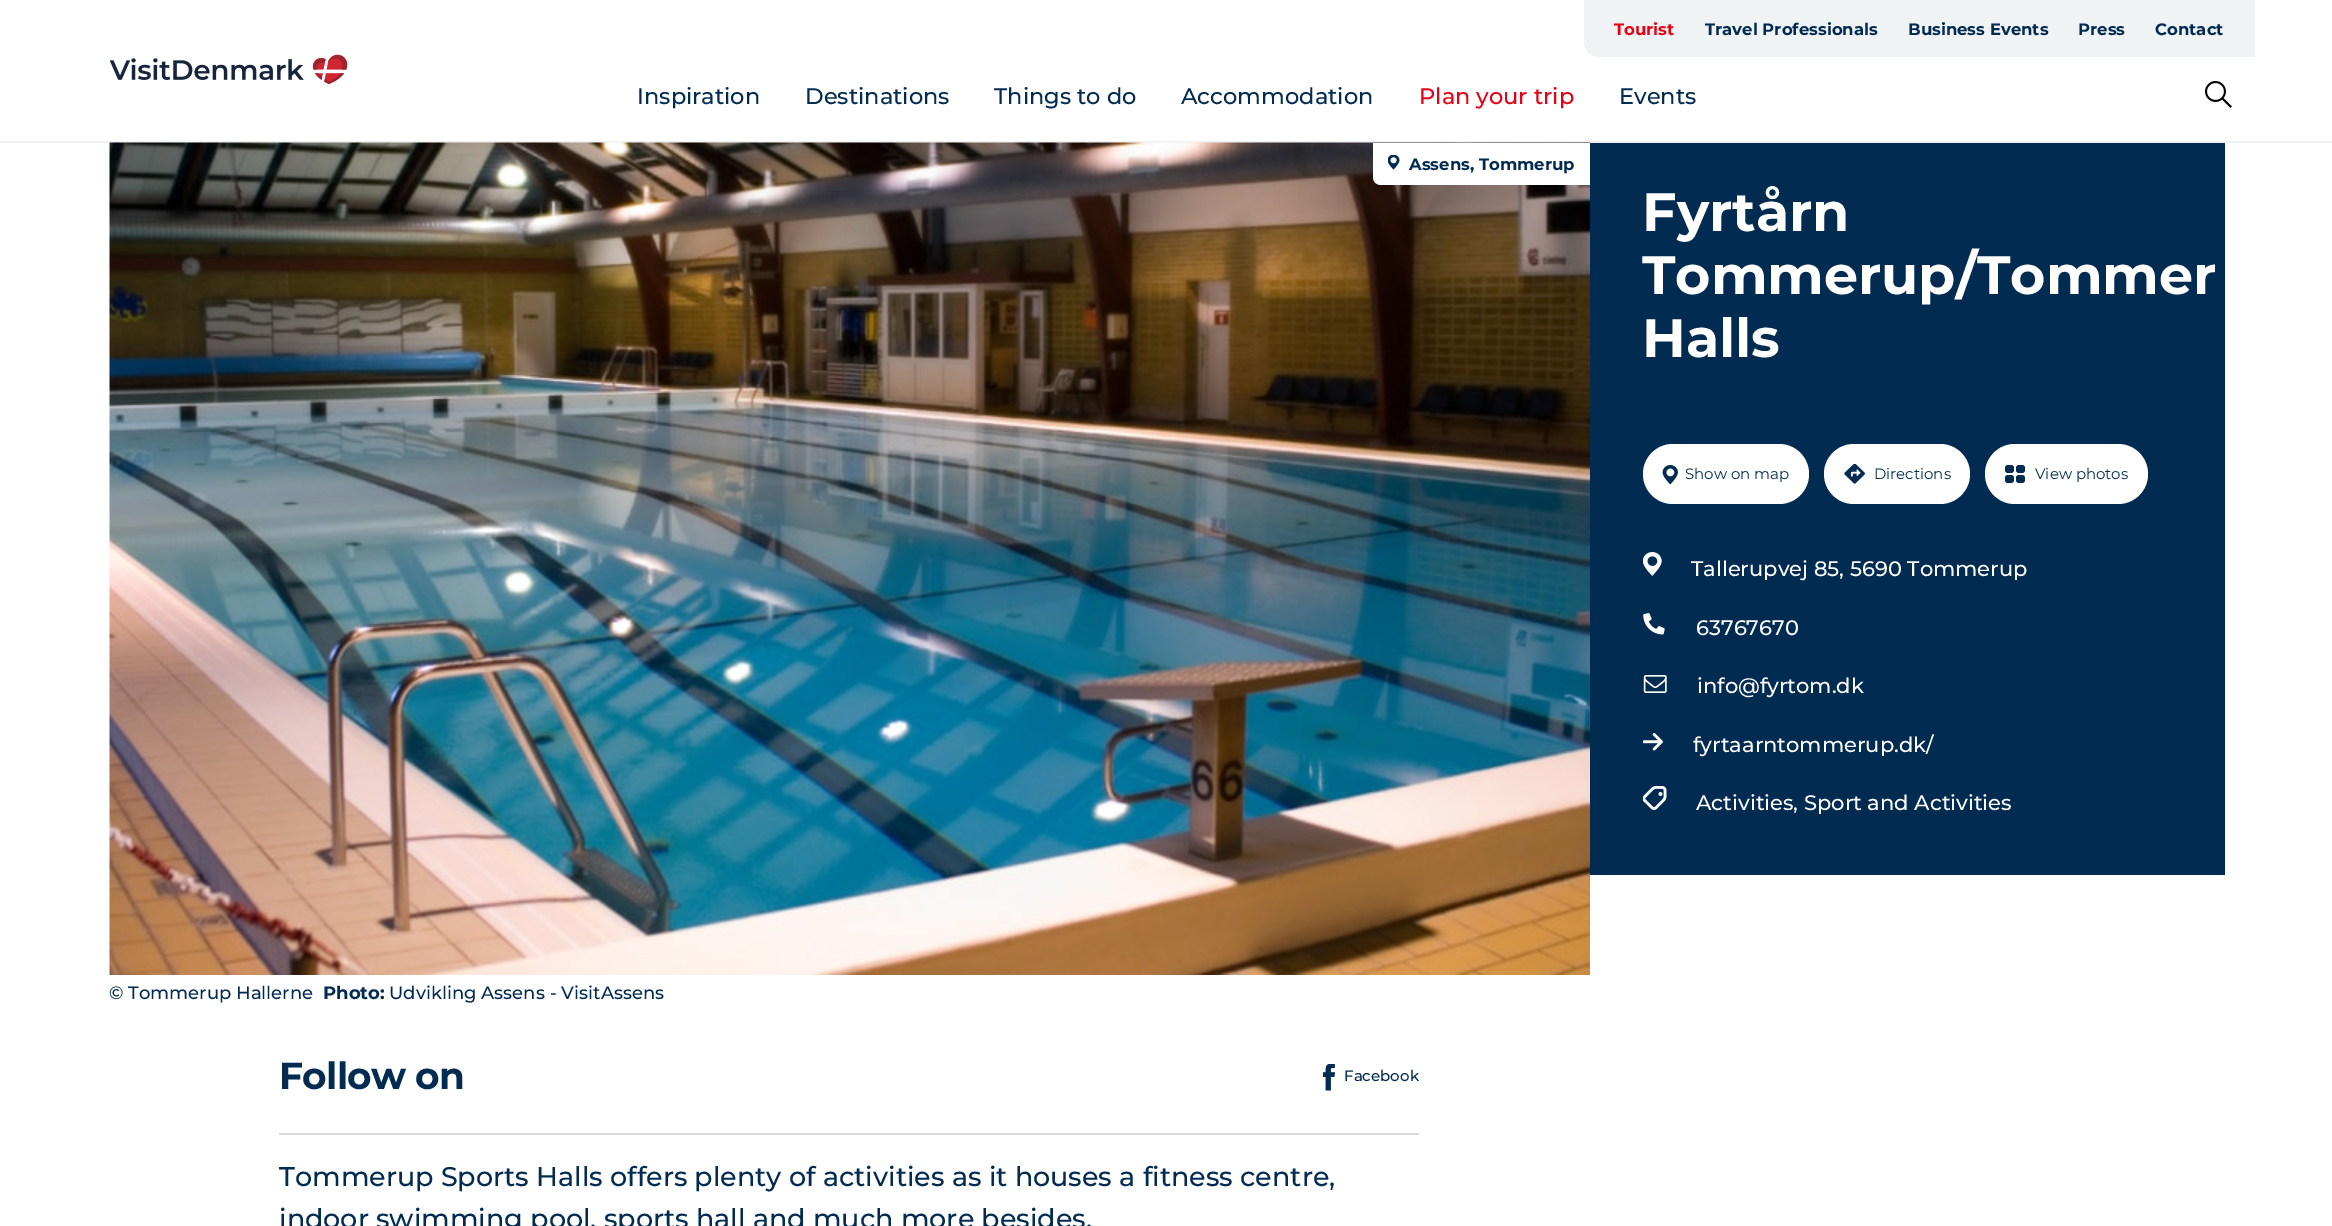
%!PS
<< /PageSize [2332 1226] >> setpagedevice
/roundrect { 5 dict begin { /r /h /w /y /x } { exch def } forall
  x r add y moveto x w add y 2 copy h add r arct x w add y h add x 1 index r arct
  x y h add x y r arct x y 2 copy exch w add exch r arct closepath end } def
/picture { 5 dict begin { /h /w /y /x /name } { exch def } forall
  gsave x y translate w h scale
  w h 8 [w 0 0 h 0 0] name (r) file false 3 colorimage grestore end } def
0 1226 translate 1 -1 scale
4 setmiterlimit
1 setgray
0 0 2332 1226 rectfill
0.941 0.945 0.953 setrgbcolor
0 141 2332 2 rectfill
(img1.rgb) 110 54 238 30 picture
0.937 0.953 0.957 setrgbcolor
newpath 1584 0 moveto 2255 0 lineto 2255 57 lineto 1599 57 lineto 1590.5 57 1584 50.5 1584 42 curveto closepath fill
/Montserrat-Bold [16.5 0 0 -16.5 0 0] selectfont
0.906 0 0.075 setrgbcolor
1614 35 moveto (Tourist) show
0.008 0.169 0.322 setrgbcolor
1705 35 moveto (Travel Professionals) show
1908 35 moveto (Business Events) show
2078 35 moveto (Press) show
2155 35 moveto (Contact) show
/Montserrat-Medium [22.5 0 0 -22.5 0 0] selectfont
637 104 moveto (Inspiration) show
805 104 moveto (Destinations) show
994 104 moveto (Things to do) show
1181 104 moveto (Accommodation) show
0.906 0 0.075 setrgbcolor
1419 104 moveto (Plan your trip) show
0.008 0.169 0.322 setrgbcolor
1619 104 moveto (Events) show
(img2.rgb) 2205 81 27 27 picture
(img3.rgb) 109 142 1481 833 picture
1 setgray
newpath 1373 143 moveto 1590 143 lineto 1590 185 lineto 1381 185 lineto 1376.5 185 1373 181.5 1373 177 curveto closepath fill
(img4.rgb) 1388 155 12 15 picture
/Montserrat-Bold [16.5 0 0 -16.5 0 0] selectfont
0.008 0.169 0.322 setrgbcolor
1409 170 moveto (Assens, Tommerup) show
/Montserrat-Medium [18 0 0 -18 0 0] selectfont
109 999 moveto (© Tommerup Hallerne) show
/Montserrat-Bold [18 0 0 -18 0 0] selectfont
323 999 moveto (Photo:) show
/Montserrat-Medium [18 0 0 -18 0 0] selectfont
389 999 moveto (Udvikling Assens - VisitAssens) show
1590 143 635 732 rectfill
/Montserrat-Bold [54 0 0 -54 0 0] selectfont
1 setgray
1642 231 moveto (Fyrtårn) show
1642 294 moveto (Tommerup/Tommer) show
1642 357 moveto (Halls) show
1643 444 166 60 30 roundrect fill
(img5.rgb) 1662 465 16 20 picture
/Montserrat-Regular [15 0 0 -15 0 0] selectfont
0.008 0.169 0.322 setrgbcolor
1685 479 moveto (Show on map) show
1 setgray
1824 444 146 60 30 roundrect fill
(img6.rgb) 1844 464 21 20 picture
0.008 0.169 0.322 setrgbcolor
1874 479 moveto (Directions) show
1 setgray
1985 444 163 60 30 roundrect fill
0.008 0.169 0.322 setrgbcolor
2016 465 9 8 3 roundrect fill
2016 475 9 8 3 roundrect fill
2005 465 9 8 3 roundrect fill
2005 475 9 8 3 roundrect fill
2035 479 moveto (View photos) show
(img7.rgb) 1643 552 19 24 picture
/Montserrat-Medium [21 0 0 -21 0 0] selectfont
1 setgray
1691 576 moveto (Tallerupvej 85, 5690 Tommerup) show
(img8.rgb) 1643 613 22 22 picture
1696 635 moveto (63767670) show
(img9.rgb) 1643 675 24 18 picture
1697 693 moveto (info@fyrtom.dk) show
(img10.rgb) 1643 733 20 18 picture
1693 752 moveto (fyrtaarntommerup.dk/) show
(img11.rgb) 1643 786 24 24 picture
1696 810 moveto (Activities, Sport and Activities) show
0.847 0.855 0.863 setrgbcolor
279 1133 1140 2 rectfill
/Montserrat-Bold [37.5 0 0 -37.5 0 0] selectfont
0.008 0.169 0.322 setrgbcolor
279 1089 moveto -0.75 0 (Follow on) ashow
(img12.rgb) 1323 1064 12 27 picture
/Montserrat-Medium [15 0 0 -15 0 0] selectfont
1344 1081 moveto (Facebook) show
/Montserrat-Medium [27 0 0 -27 0 0] selectfont
279 1186 moveto (Tommerup Sports Halls offers plenty of activities as it houses a fitness centre,) show
279 1228 moveto (indoor swimming pool, sports hall and much more besides.) show
showpage
